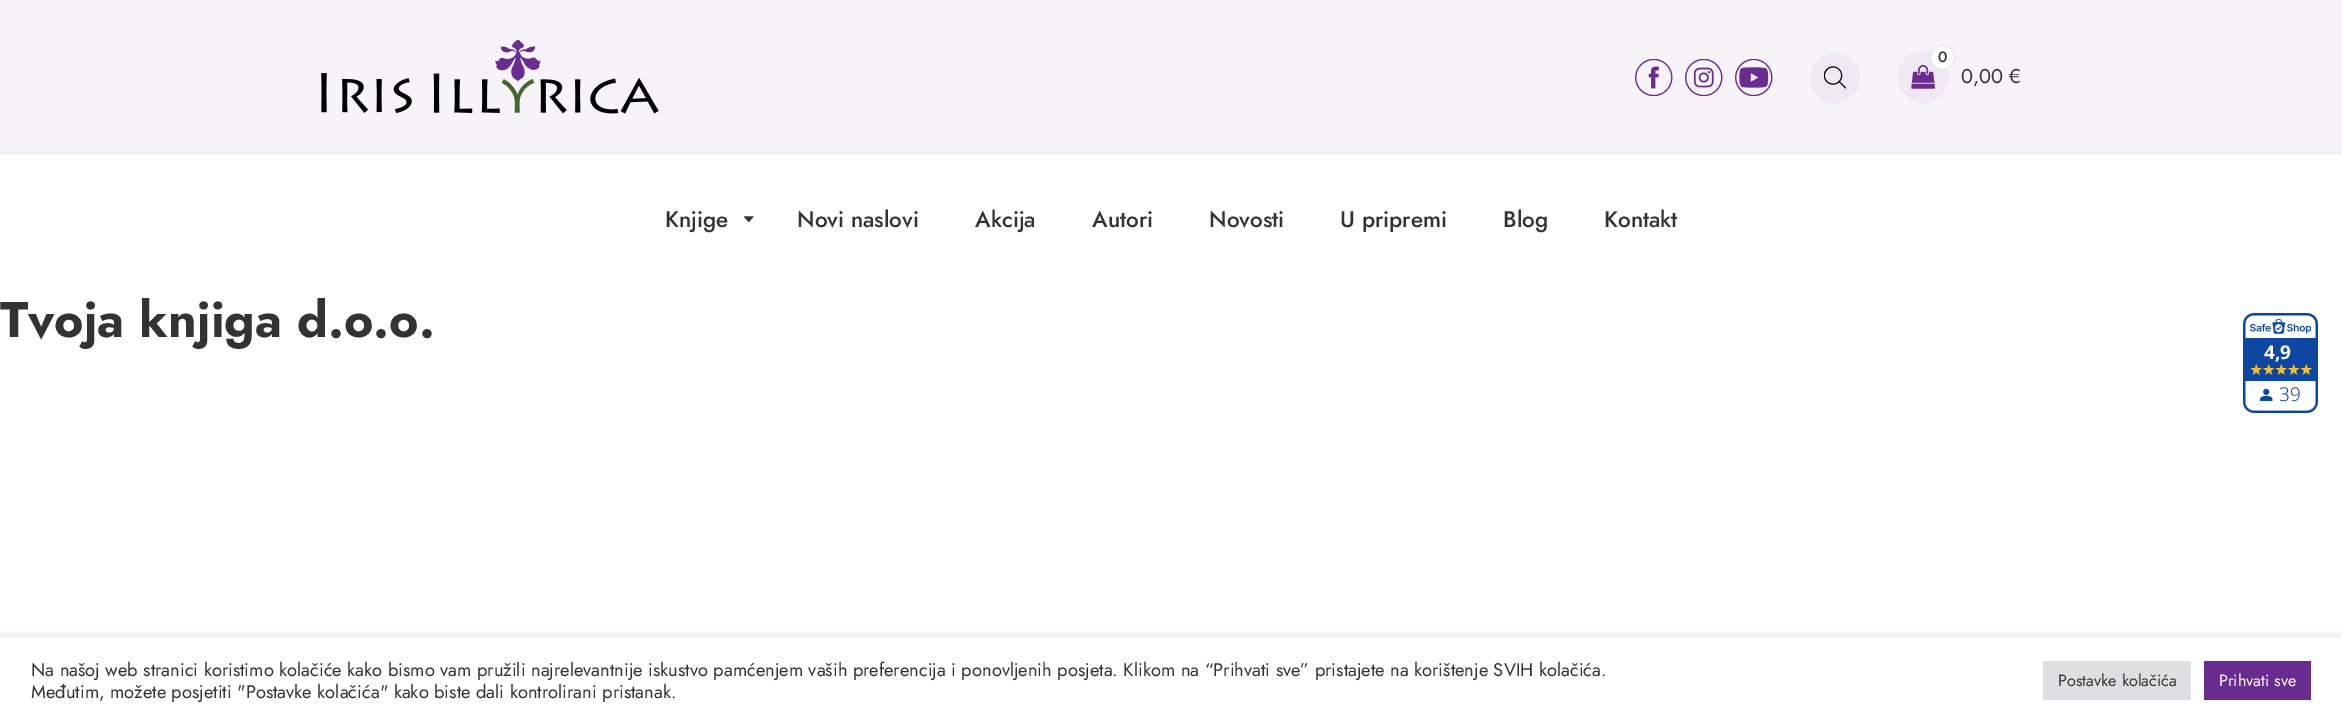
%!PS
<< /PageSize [2342 723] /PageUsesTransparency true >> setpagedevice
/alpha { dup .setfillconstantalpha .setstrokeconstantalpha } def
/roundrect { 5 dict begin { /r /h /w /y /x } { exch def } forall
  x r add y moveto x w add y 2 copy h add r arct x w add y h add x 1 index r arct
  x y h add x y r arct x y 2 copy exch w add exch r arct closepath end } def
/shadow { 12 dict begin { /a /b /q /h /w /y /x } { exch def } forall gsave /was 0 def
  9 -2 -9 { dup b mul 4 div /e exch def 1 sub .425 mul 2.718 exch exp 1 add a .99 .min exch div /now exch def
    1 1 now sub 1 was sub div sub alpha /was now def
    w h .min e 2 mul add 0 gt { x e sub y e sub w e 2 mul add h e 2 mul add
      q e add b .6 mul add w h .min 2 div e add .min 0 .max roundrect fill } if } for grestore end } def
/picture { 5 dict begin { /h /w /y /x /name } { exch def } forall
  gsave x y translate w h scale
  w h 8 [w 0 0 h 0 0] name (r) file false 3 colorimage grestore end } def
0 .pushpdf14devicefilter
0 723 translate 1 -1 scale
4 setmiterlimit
1 setgray
0 0 2342 723 rectfill
0.969 0.957 0.976 setrgbcolor
0 0 2342 153 rectfill
(img1.rgb) 321 40 338 74 picture
(img2.rgb) 1635 59 38 37 picture
(img3.rgb) 1685 59 38 37 picture
(img4.rgb) 1735 59 38 37 picture
0.941 0.914 0.957 setrgbcolor
newpath 1835 78 25 0 360 arc closepath fill
(img5.rgb) 1824 66 22 23 picture
1898 51 51 52 25.5 roundrect fill
(img6.rgb) 1911 65 24 24 picture
1 setgray
newpath 1942.5 57.5 12 0 360 arc closepath gsave fill grestore
0.906 setgray
stroke
/Jost-Medium [15 0 0 -15 0 0] selectfont
0.2 setgray
1938 62 moveto (0) show
/Jost-Regular [20 0 0 -20 0 0] selectfont
1961 83 moveto (0,00 €) show
0.906 setgray
0 153 2342 1 rectfill
(img7.rgb) 744 216 10 6 picture
/Jost-Medium [22.5 0 0 -22.5 0 0] selectfont
0.2 setgray
665 227 moveto (Knjige) show
797 227 moveto (Novi naslovi) show
975 227 moveto (Akcija) show
1092 227 moveto (Autori) show
1209 227 moveto (Novosti) show
1340 227 moveto (U pripremi) show
1503 227 moveto (Blog) show
1604 227 moveto (Kontakt) show
/Jost-Bold [50 0 0 -50 0 0] selectfont
0 337 moveto (Tvoja knjiga d.o.o.) show
(img8.rgb) 2243 313 75 100 picture
/NotoSans-Bold [19 0 0 -19 0 0] selectfont
1 setgray
2264 359 moveto (4,9) show
/NotoSans-Light [19 0 0 -19 0 0] selectfont
0.051 0.278 0.631 setrgbcolor
2279 401 moveto (39) show
0.675 0.671 0.671 setrgbcolor
0 636 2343 87 0 6 0.3 shadow
1 setgray
0 638 2342 85 rectfill
/Jost-Regular [18.33 0 0 -18.33 0 0] selectfont
0.2 setgray
31 676 moveto (Na našoj web stranici koristimo kolačiće kako bismo vam pružili najrelevantnije iskustvo pamćenjem vaših preferencija i ponovljenih posjeta. Klikom na “Prihvati sve” pristajete na korištenje SVIH kolačića.) show
31 698 moveto (Međutim, možete posjetiti "Postavke kolačića" kako biste dali kontrolirani pristanak.) show
0.871 0.875 0.878 setrgbcolor
2043 661 148 39 rectfill
/Jost-Regular [16.25 0 0 -16.25 0 0] selectfont
0.2 setgray
2058 686 moveto (Postavke kolačića) show
0.42 0.173 0.569 setrgbcolor
2204 661 107 39 rectfill
1 setgray
2219 686 moveto (Prihvati sve) show
.poppdf14devicefilter showpage
